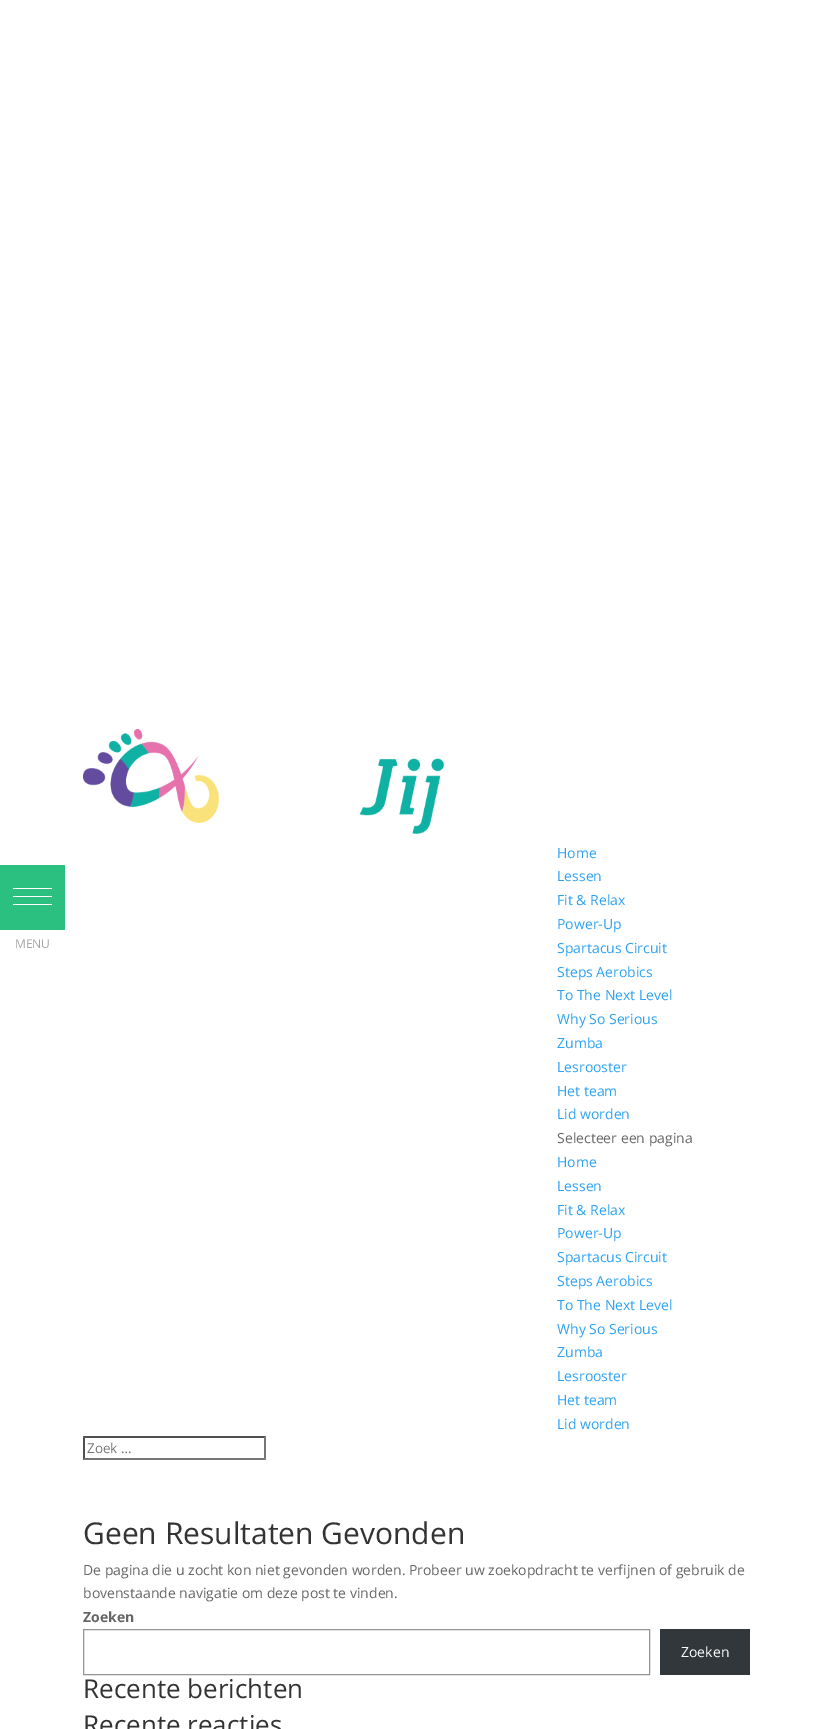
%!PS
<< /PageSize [833 1729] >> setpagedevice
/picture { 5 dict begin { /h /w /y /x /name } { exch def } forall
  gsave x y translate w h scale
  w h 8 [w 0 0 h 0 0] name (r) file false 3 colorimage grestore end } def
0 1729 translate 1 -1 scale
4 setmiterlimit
1 setgray
0 0 833 1729 rectfill
0.169 0.753 0.502 setrgbcolor
0 865 65 65 rectfill
1 setgray
13 896 39 1 rectfill
13 888 39 1 rectfill
13 904 39 1 rectfill
/OpenSans-Regular [12 0 0 -12 0 0] selectfont
0.643 setgray
15 948 moveto (MENU) show
(img1.rgb) 83 729 362 105 picture
/OpenSans-Regular [14 0 0 -14 0 0] selectfont
0.18 0.639 0.949 setrgbcolor
557 858 moveto (Home) show
557 881 moveto (Lessen) show
557 905 moveto (Fit & Relax) show
557 929 moveto (Power-Up) show
557 953 moveto (Spartacus Circuit) show
557 977 moveto (Steps Aerobics) show
557 1000 moveto (To The Next Level) show
557 1024 moveto (Why So Serious) show
557 1048 moveto (Zumba) show
557 1072 moveto (Lesrooster) show
557 1096 moveto (Het team) show
557 1119 moveto (Lid worden) show
0.4 setgray
557 1143 moveto (Selecteer een pagina) show
0.18 0.639 0.949 setrgbcolor
557 1167 moveto (Home) show
557 1191 moveto (Lessen) show
557 1215 moveto (Fit & Relax) show
557 1238 moveto (Power-Up) show
557 1262 moveto (Spartacus Circuit) show
557 1286 moveto (Steps Aerobics) show
557 1310 moveto (To The Next Level) show
557 1334 moveto (Why So Serious) show
557 1357 moveto (Zumba) show
557 1381 moveto (Lesrooster) show
557 1405 moveto (Het team) show
557 1429 moveto (Lid worden) show
0.31 setgray
newpath 83 1436 moveto 266 1436 lineto 264 1438 lineto 85 1438 lineto closepath fill
0.463 setgray
newpath 266 1436 moveto 266 1460 lineto 264 1458 lineto 264 1438 lineto closepath fill
newpath 266 1460 moveto 83 1460 lineto 85 1458 lineto 264 1458 lineto closepath fill
0.31 setgray
newpath 83 1460 moveto 83 1436 lineto 85 1438 lineto 85 1458 lineto closepath fill
/OpenSans-Regular [13.5 0 0 -13.5 0 0] selectfont
0.459 setgray
87 1453 moveto (Zoek …) show
/OpenSans-Regular [30 0 0 -30 0 0] selectfont
0.2 setgray
83 1544 moveto (Geen Resultaten Gevonden) show
/OpenSans-Regular [14 0 0 -14 0 0] selectfont
0.4 setgray
83 1575 moveto (De pagina die u zocht kon niet gevonden worden. Probeer uw zoekopdracht te verfijnen of gebruik de) show
83 1598 moveto (bovenstaande navigatie om deze post te vinden.) show
/OpenSans-Bold [14 0 0 -14 0 0] selectfont
83 1622 moveto (Zoeken) show
0.58 setgray
83.5 1629.5 566 45 rectstroke
0.196 0.216 0.235 setrgbcolor
660 1629 90 46 rectfill
/OpenSans-Regular [14 0 0 -14 0 0] selectfont
1 setgray
681 1657 moveto (Zoeken) show
/OpenSans-Regular [26 0 0 -26 0 0] selectfont
0.2 setgray
83 1698 moveto (Recente berichten) show
83 1734 moveto (Recente reacties) show
showpage
